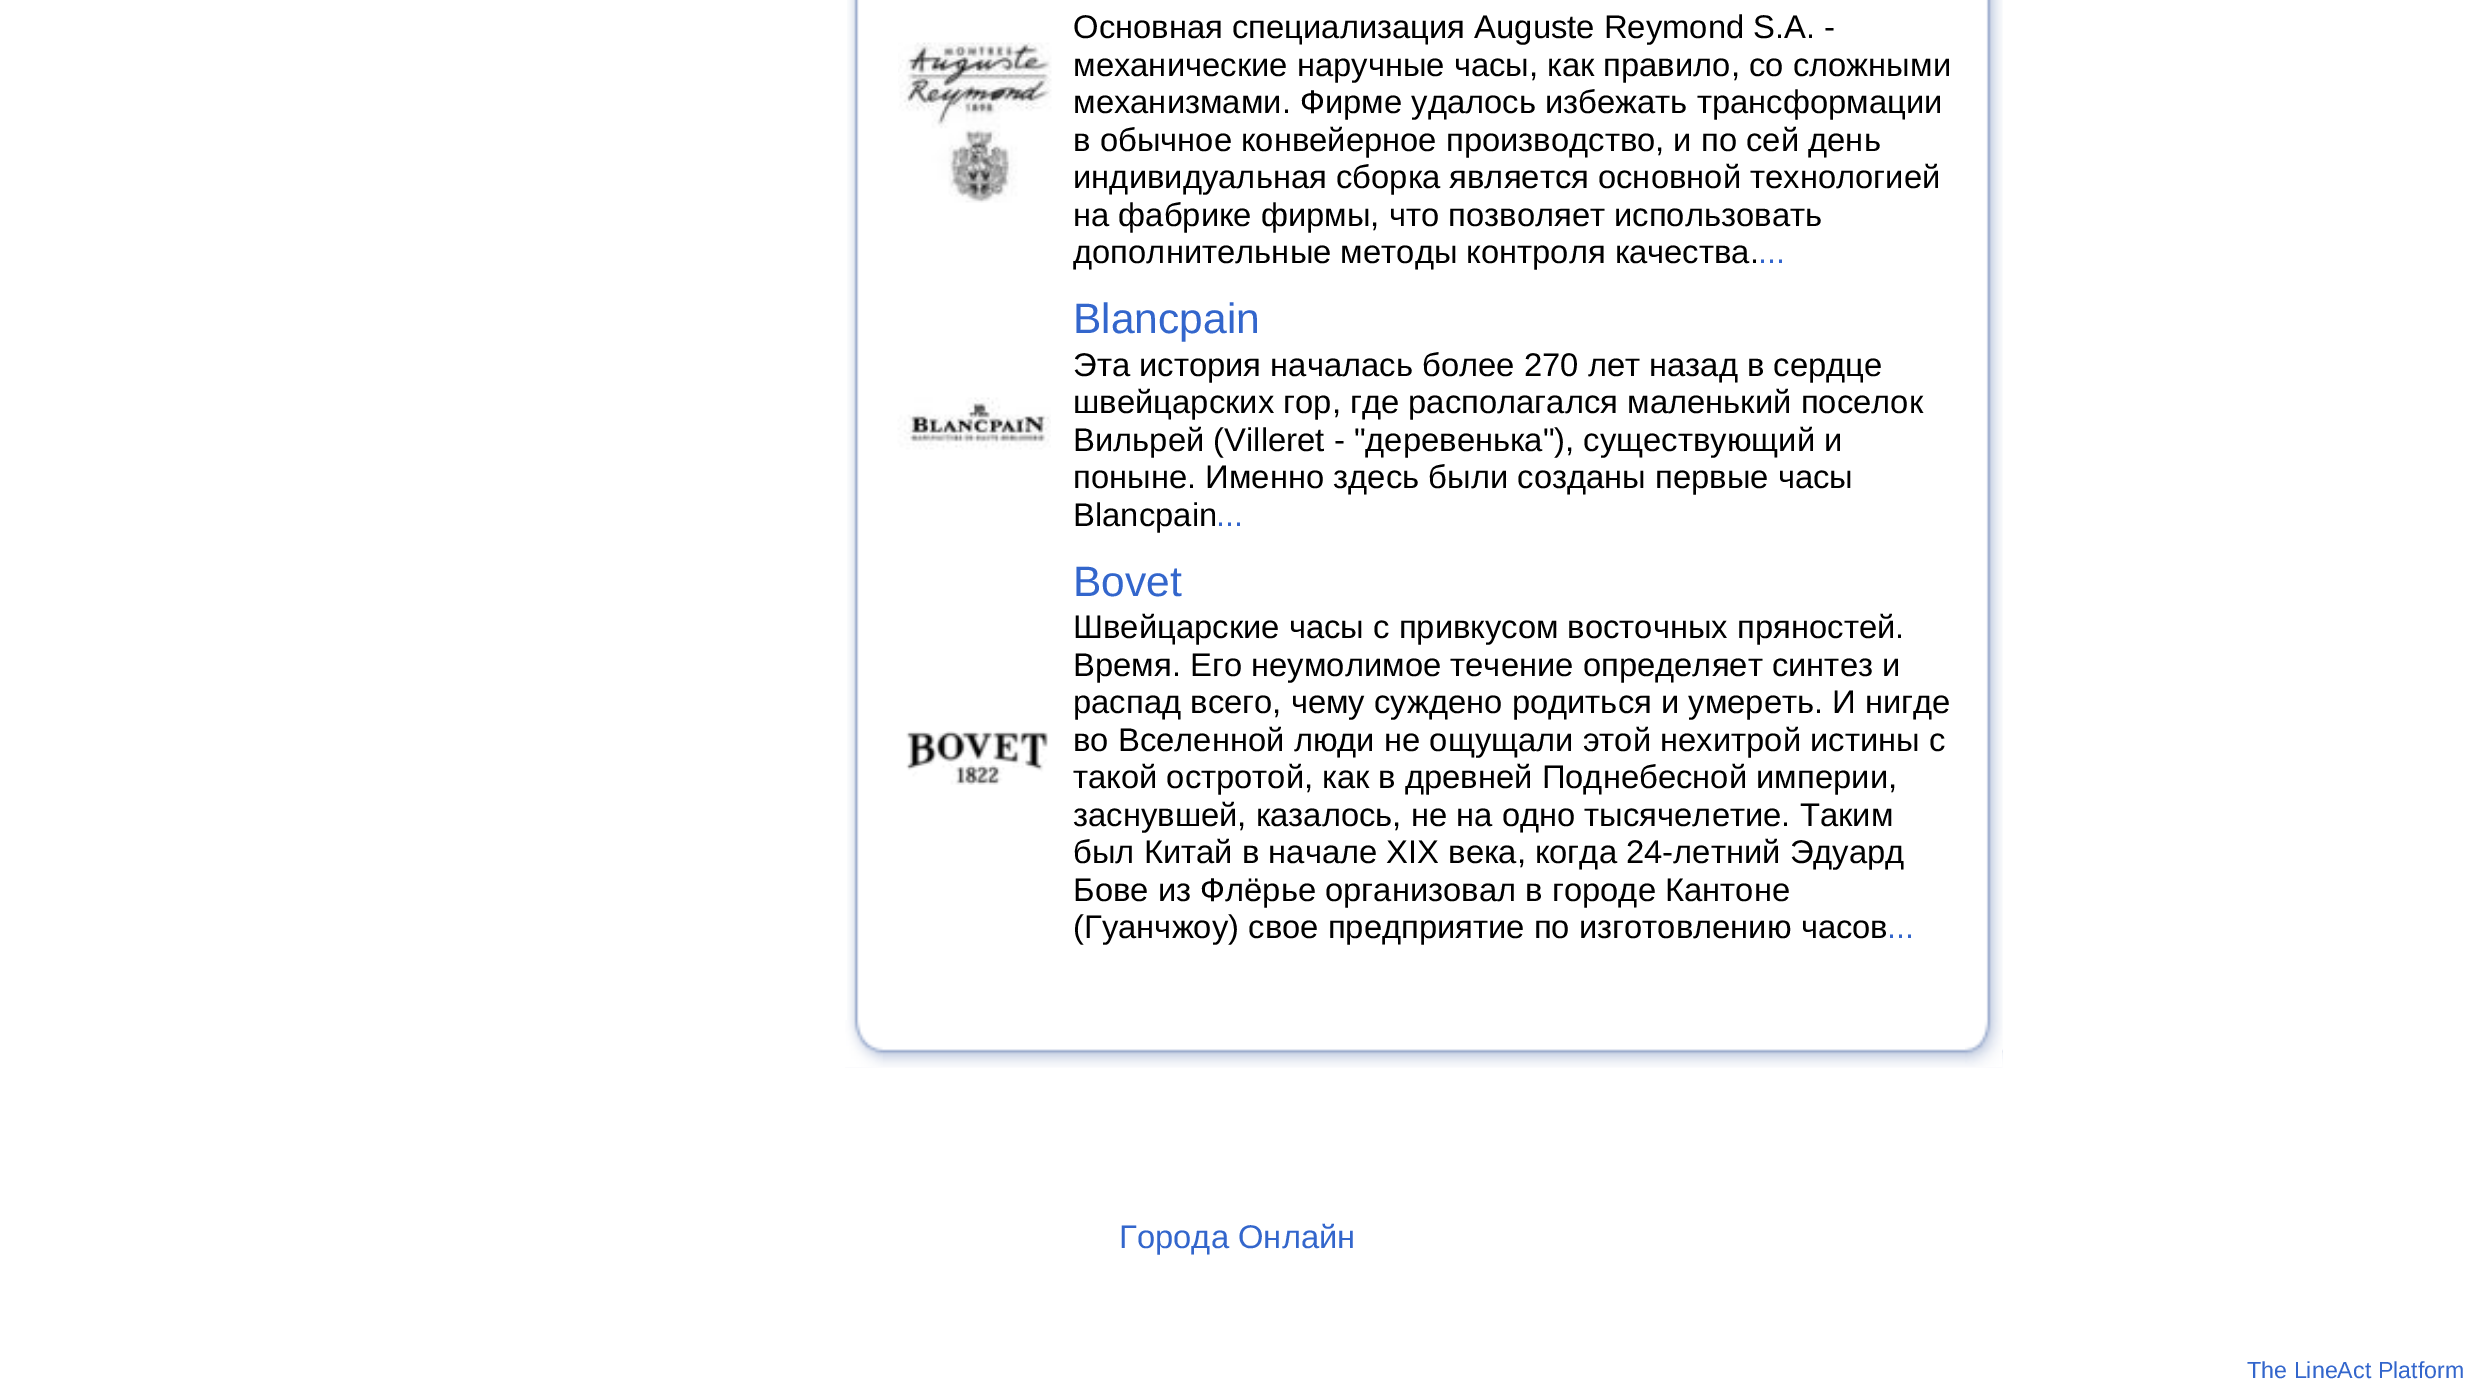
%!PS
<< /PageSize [2473 1392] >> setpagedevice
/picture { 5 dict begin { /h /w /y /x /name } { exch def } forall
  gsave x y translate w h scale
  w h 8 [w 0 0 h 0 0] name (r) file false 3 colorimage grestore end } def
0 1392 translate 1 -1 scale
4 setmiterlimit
1 setgray
0 0 2473 1392 rectfill
(img1.rgb) 847 0 12 1020 picture
(img2.rgb) 1986 0 17 1020 picture
(img3.rgb) 898 42 154 161 picture
/LiberationSans-Regular [32.8 0 0 -32.8 0 0] selectfont
0 setgray
1073 38 moveto (Основная специализация Auguste Reymond S.A. -) show
1073 76 moveto (механические наручные часы, как правило, со сложными) show
1073 113 moveto (механизмами. Фирме удалось избежать трансформации) show
1073 151 moveto (в обычное конвейерное производство, и по сей день) show
1073 188 moveto (индивидуальная сборка является основной технологией) show
1073 226 moveto (на фабрике фирмы, что позволяет использовать) show
1073 263 moveto (дополнительные методы контроля качества.) show
0.2 0.4 0.8 setrgbcolor
1758 263 moveto (...) show
(img4.rgb) 897 397 154 53 picture
/LiberationSans-Regular [42.5 0 0 -42.5 0 0] selectfont
1073 333 moveto (Blancpain) show
/LiberationSans-Regular [32.8 0 0 -32.8 0 0] selectfont
0 setgray
1073 376 moveto (Эта история началась более 270 лет назад в сердце) show
1073 413 moveto (швейцарских гор, где располагался маленький поселок) show
1073 451 moveto (Вильрей \(Villeret - "деревенька"\), существующий и) show
1073 488 moveto (поныне. Именно здесь были созданы первые часы) show
1073 526 moveto (Blancpain) show
0.2 0.4 0.8 setrgbcolor
1216 526 moveto (...) show
(img5.rgb) 906 731 142 54 picture
/LiberationSans-Regular [42.5 0 0 -42.5 0 0] selectfont
1073 596 moveto (Bovet) show
/LiberationSans-Regular [32.8 0 0 -32.8 0 0] selectfont
0 setgray
1073 638 moveto (Швейцарские часы с привкусом восточных пряностей.) show
1073 676 moveto (Время. Его неумолимое течение определяет синтез и) show
1073 713 moveto (распад всего, чему суждено родиться и умереть. И нигде) show
1073 751 moveto (во Вселенной люди не ощущали этой нехитрой истины с) show
1073 788 moveto (такой остротой, как в древней Поднебесной империи,) show
1073 826 moveto (заснувшей, казалось, не на одно тысячелетие. Таким) show
1073 863 moveto (был Китай в начале XIX века, когда 24-летний Эдуард) show
1073 901 moveto (Бове из Флёрье организовал в городе Кантоне) show
1073 938 moveto (\(Гуанчжоу\) свое предприятие по изготовлению часов) show
0.2 0.4 0.8 setrgbcolor
1887 938 moveto (...) show
(img6.rgb) 845 1049 1158 19 picture
(img7.rgb) 1965 1020 38 47 picture
(img8.rgb) 845 1020 38 47 picture
1119 1248 moveto (Города Онлайн) show
/LiberationSans-Regular [23.25 0 0 -23.25 0 0] selectfont
2247 1378 moveto (The LineAct Platform) show
showpage
